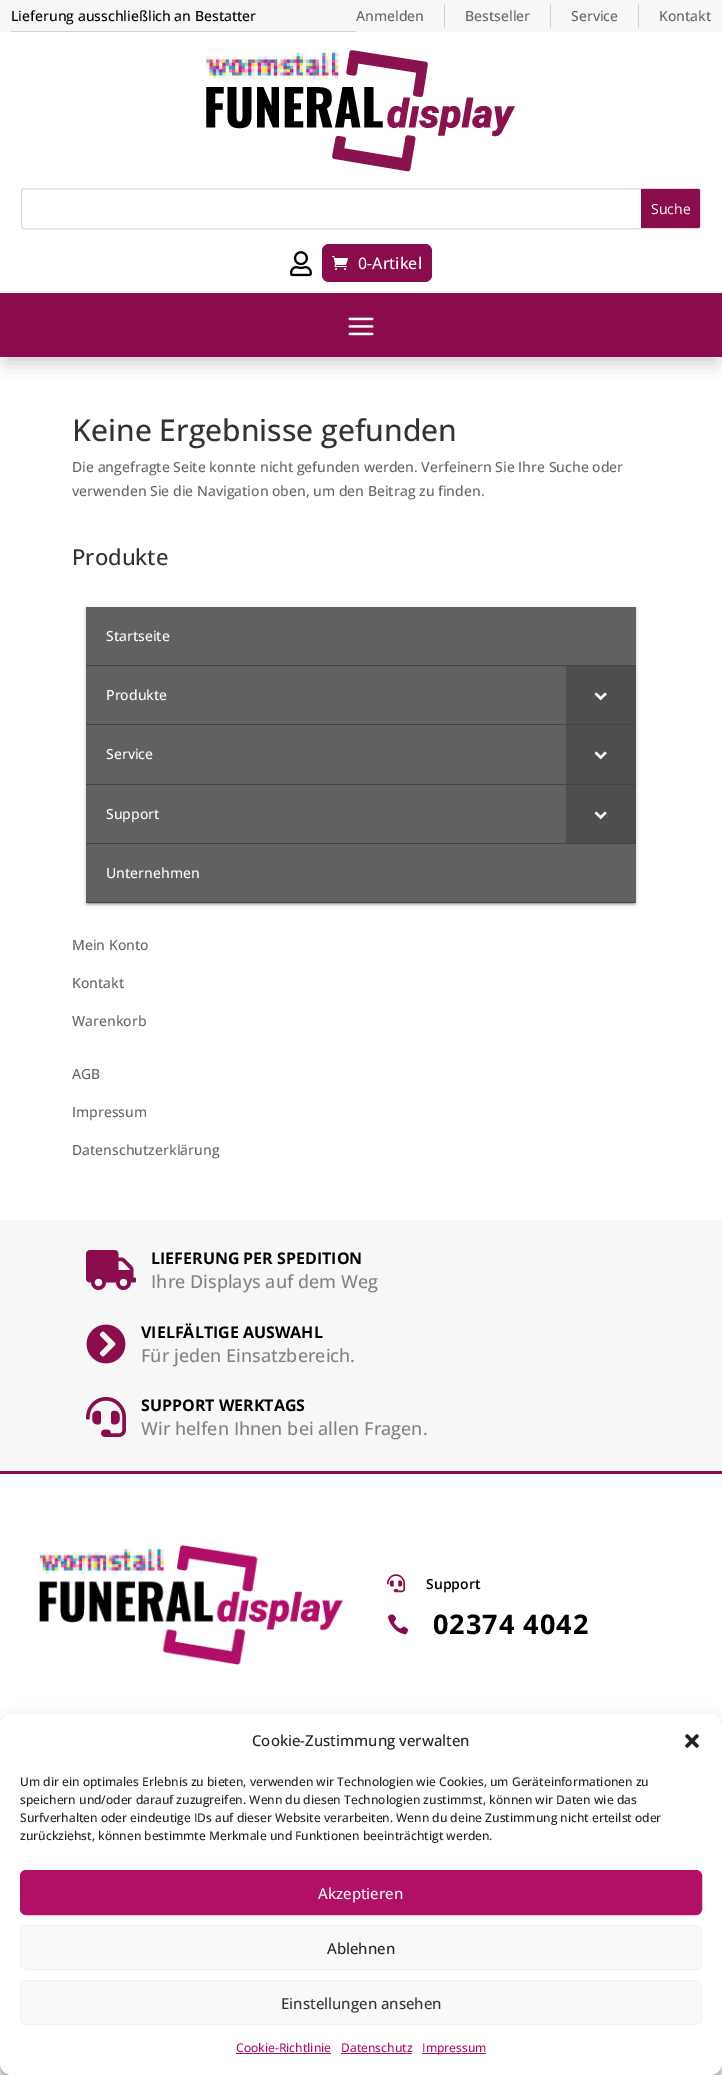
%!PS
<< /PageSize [722 2075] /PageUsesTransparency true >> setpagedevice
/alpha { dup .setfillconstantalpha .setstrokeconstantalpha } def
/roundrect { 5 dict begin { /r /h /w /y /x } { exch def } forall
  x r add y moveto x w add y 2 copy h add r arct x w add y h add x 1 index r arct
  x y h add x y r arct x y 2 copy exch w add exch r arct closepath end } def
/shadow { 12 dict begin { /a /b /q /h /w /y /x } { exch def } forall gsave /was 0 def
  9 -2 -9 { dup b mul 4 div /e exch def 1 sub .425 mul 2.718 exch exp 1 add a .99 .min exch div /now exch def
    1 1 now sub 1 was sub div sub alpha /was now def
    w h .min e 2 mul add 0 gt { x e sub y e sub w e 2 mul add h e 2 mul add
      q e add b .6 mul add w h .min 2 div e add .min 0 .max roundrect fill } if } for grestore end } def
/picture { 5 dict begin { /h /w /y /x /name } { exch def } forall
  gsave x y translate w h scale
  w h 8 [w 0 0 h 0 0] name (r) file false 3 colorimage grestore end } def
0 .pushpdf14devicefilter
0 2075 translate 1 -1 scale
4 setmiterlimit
1 setgray
0 0 722 2075 rectfill
0.969 setgray
0 0 722 32 rectfill
0.82 setgray
11 31 345 1 rectfill
/OpenSans-Medium [14 0 0 -14 0 0] selectfont
0 setgray
11 21 moveto (Lieferung ausschließlich an Bestatter) show
0.82 setgray
444 4 1 24 rectfill
0.4 setgray
356 21 moveto (Anmelden) show
0.82 setgray
550 4 1 24 rectfill
0.4 setgray
465 21 moveto (Bestseller) show
0.82 setgray
638 4 1 24 rectfill
0.4 setgray
571 21 moveto (Service) show
659 21 moveto (Kontakt) show
(img1.rgb) 206 50 309 122 picture
0.867 setgray
21.5 188.5 679 40 2.5 roundrect stroke
0.541 0.047 0.302 setrgbcolor
newpath 641 189 moveto 698 189 lineto 699 189 700 190 700 191 curveto 700 226 lineto 700 227 699 228 698 228 curveto 641 228 lineto closepath fill
/OpenSans-Regular [14 0 0 -14 0 0] selectfont
1 setgray
651 214 moveto (Suche) show
(img2.rgb) 290 251 22 26 picture
0.541 0.047 0.302 setrgbcolor
322 244 110 38 7 roundrect fill
(img3.rgb) 332 256 16 14 picture
/OpenSans-Medium [16 0 0 -16 0 0] selectfont
1 setgray
358 269 moveto (0-Artikel) show
0 setgray
6 311 710 52 0 9 0.2 shadow
0.541 0.047 0.302 setrgbcolor
0 293 722 64 rectfill
(img4.rgb) 348 317 26 19 picture
/OpenSans-Medium [30 0 0 -30 0 0] selectfont
0.2 setgray
72 441 moveto (Keine Ergebnisse gefunden) show
/OpenSans-Medium [14 0 0 -14 0 0] selectfont
0.4 setgray
72 472 moveto (Die angefragte Seite konnte nicht gefunden werden. Verfeinern Sie Ihre Suche oder) show
72 496 moveto (verwenden Sie die Navigation oben, um den Beitrag zu finden.) show
/OpenSans-Medium [22 0 0 -22 0 0] selectfont
0.2 setgray
72 565 moveto (Produkte) show
0 setgray
86 608 550 296 0 2.5 0.12 shadow
88 612 546 292 0 0.5 0.2 shadow
86 609 550 296 0 1 0.14 shadow
0.38 setgray
86 607 550 295 rectfill
0.267 setgray
86 665 550 1 rectfill
/OpenSans-Medium [14 0 0 -14 0 0] selectfont
1 setgray
106 641 moveto (Startseite) show
0.267 setgray
86 724 550 1 rectfill
1 setgray
106 700 moveto (Produkte) show
0.306 setgray
566 666 70 58 rectfill
(img5.rgb) 594 692 13 9 picture
0.267 setgray
86 784 550 1 rectfill
1 setgray
106 759 moveto (Service) show
0.306 setgray
566 725 70 59 rectfill
(img5.rgb) 594 751 13 9 picture
0.267 setgray
86 843 550 1 rectfill
1 setgray
106 819 moveto (Support) show
0.306 setgray
566 785 70 58 rectfill
(img5.rgb) 594 811 13 9 picture
0.267 setgray
86 902 550 1 rectfill
1 setgray
106 878 moveto (Unternehmen) show
0.4 setgray
72 950 moveto (Mein Konto) show
72 988 moveto (Kontakt) show
72 1026 moveto (Warenkorb) show
72 1079 moveto (AGB) show
72 1117 moveto (Impressum) show
72 1155 moveto (Datenschutzerklärung) show
0.969 setgray
0 1220 722 251 rectfill
0.541 0.047 0.302 setrgbcolor
0 1471 722 3 rectfill
(img6.rgb) 86 1250 50 40 picture
/OpenSans-Bold [16 0 0 -16 0 0] selectfont
0 setgray
151 1264 moveto (LIEFERUNG PER SPEDITION) show
/OpenSans-Medium [18 0 0 -18 0 0] selectfont
0.51 setgray
151 1288 moveto (Ihre Displays auf dem Weg) show
(img7.rgb) 86 1324 40 40 picture
/OpenSans-Bold [16 0 0 -16 0 0] selectfont
0 setgray
141 1338 moveto (VIELFÄLTIGE AUSWAHL) show
/OpenSans-Medium [18 0 0 -18 0 0] selectfont
0.51 setgray
141 1362 moveto (Für jeden Einsatzbereich.) show
(img8.rgb) 86 1397 40 40 picture
/OpenSans-Bold [16 0 0 -16 0 0] selectfont
0 setgray
141 1411 moveto (SUPPORT WERKTAGS) show
/OpenSans-Medium [18 0 0 -18 0 0] selectfont
0.51 setgray
141 1435 moveto (Wir helfen Ihnen bei allen Fragen.) show
(img9.rgb) 39 1545 304 120 picture
(img10.rgb) 387 1574 18 19 picture
/OpenSans-SemiBold [14 0 0 -14 0 0] selectfont
0 setgray
426 1589 moveto (Support) show
(img11.rgb) 387 1614 22 21 picture
/OpenSans-Bold [27 0 0 -27 0 0] selectfont
433 1634 moveto 1 0 (02374 4042) ashow
0 1720 722 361 12 3 0.23 shadow
0 1724 722 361 12 10 0.19 shadow
1 setgray
0 1714 722 361 12 roundrect fill
/OpenSans-Medium [15 0 0 -15 0 0] selectfont
0.133 setgray
252 1746 moveto (Cookie-Zustimmung verwalten) show
(img12.rgb) 685 1734 14 14 picture
/OpenSans-Medium [12 0 0 -12 0 0] selectfont
20 1786 moveto (Um dir ein optimales Erlebnis zu bieten, verwenden wir Technologien wie Cookies, um Geräteinformationen zu) show
20 1804 moveto (speichern und/oder darauf zuzugreifen. Wenn du diesen Technologien zustimmst, können wir Daten wie das) show
20 1822 moveto (Surfverhalten oder eindeutige IDs auf dieser Website verarbeiten. Wenn du deine Zustimmung nicht erteilst oder) show
20 1840 moveto (zurückziehst, können bestimmte Merkmale und Funktionen beeinträchtigt werden.) show
0.698 0.059 0.404 setrgbcolor
20.5 1870.5 681 44 5.5 roundrect gsave fill grestore
stroke
/OpenSans-Medium [15 0 0 -15 0 0] selectfont
1 setgray
318 1899 moveto (Akzeptieren) show
0.976 setgray
20.5 1925.5 681 44 5.5 roundrect gsave fill grestore
0.949 setgray
stroke
0.133 setgray
327 1954 moveto (Ablehnen) show
0.976 setgray
20.5 1980.5 681 44 5.5 roundrect gsave fill grestore
0.949 setgray
stroke
0.2 setgray
281 2009 moveto (Einstellungen ansehen) show
/OpenSans-Medium [12 0 0 -12 0 0] selectfont
0.698 0.059 0.404 setrgbcolor
236 2052 moveto (Cookie-Richtlinie) show
236 2053 95 1 rectfill
341 2052 moveto (Datenschutz) show
341 2053 71 1 rectfill
422 2053 64 1 rectfill
422 2052 moveto (Impressum) show
.poppdf14devicefilter showpage
